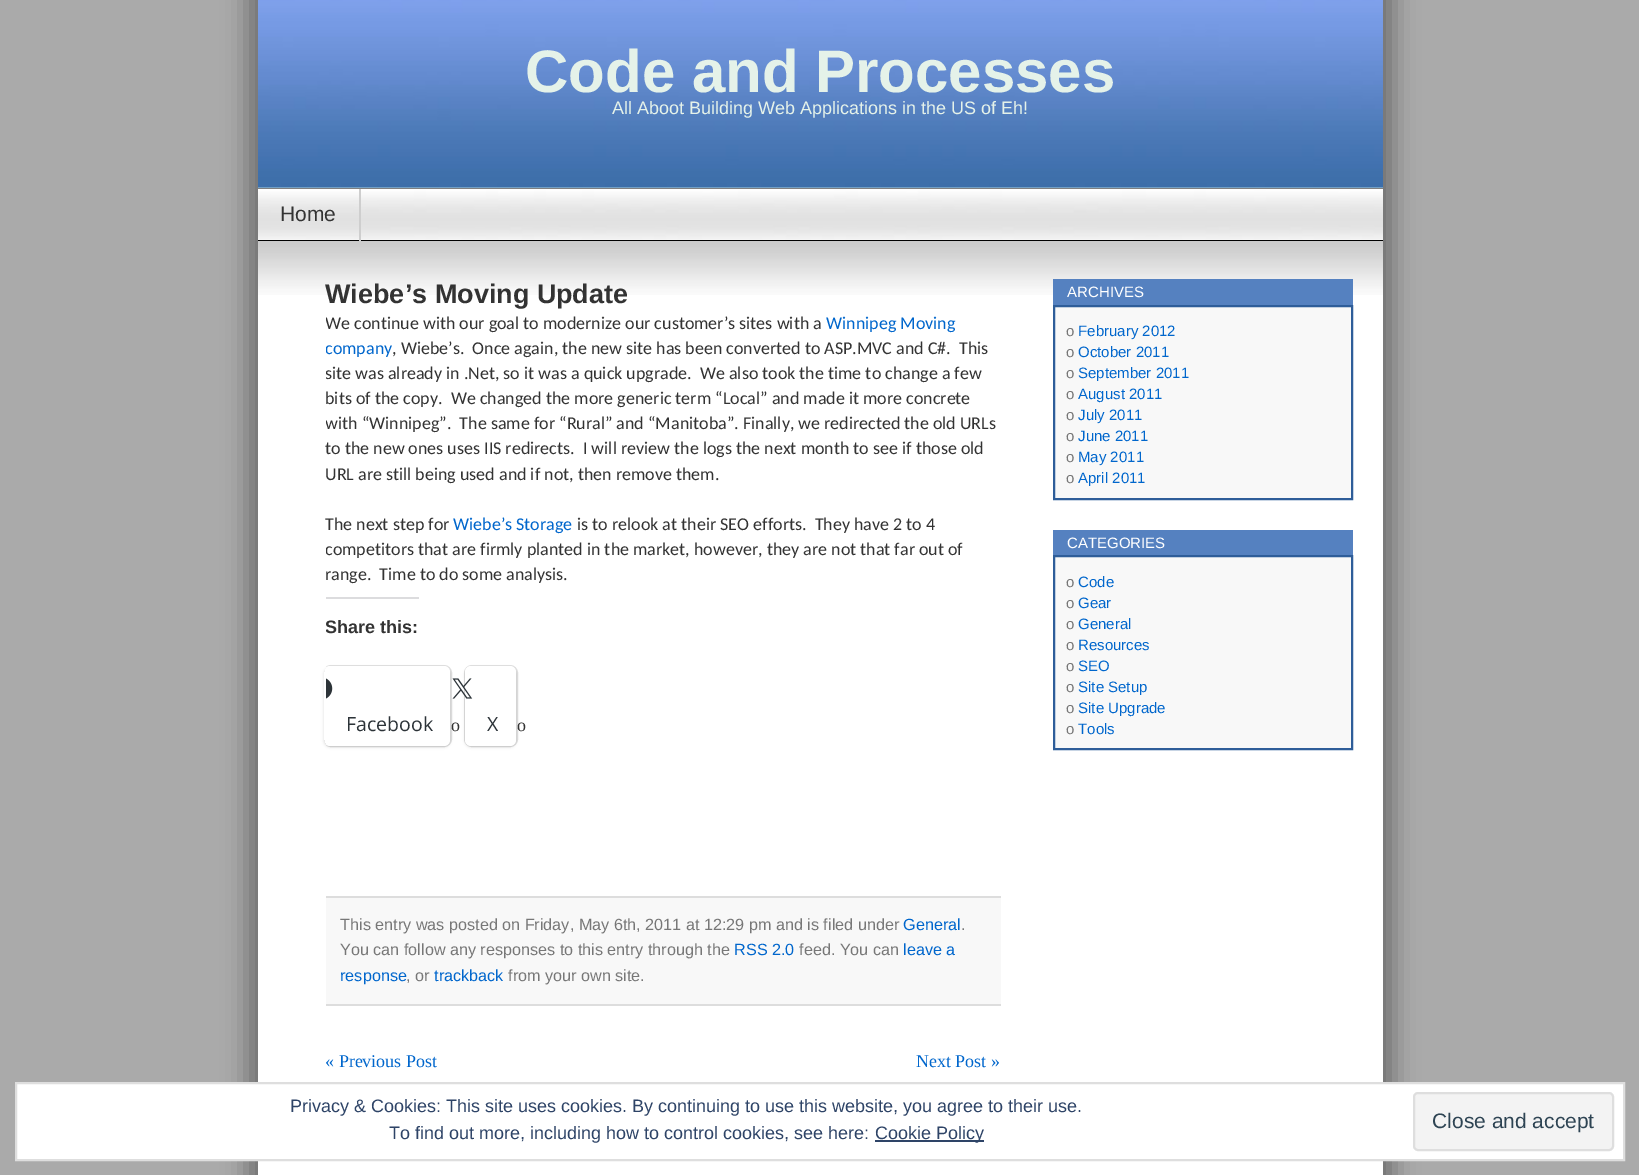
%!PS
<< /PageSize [1639 1175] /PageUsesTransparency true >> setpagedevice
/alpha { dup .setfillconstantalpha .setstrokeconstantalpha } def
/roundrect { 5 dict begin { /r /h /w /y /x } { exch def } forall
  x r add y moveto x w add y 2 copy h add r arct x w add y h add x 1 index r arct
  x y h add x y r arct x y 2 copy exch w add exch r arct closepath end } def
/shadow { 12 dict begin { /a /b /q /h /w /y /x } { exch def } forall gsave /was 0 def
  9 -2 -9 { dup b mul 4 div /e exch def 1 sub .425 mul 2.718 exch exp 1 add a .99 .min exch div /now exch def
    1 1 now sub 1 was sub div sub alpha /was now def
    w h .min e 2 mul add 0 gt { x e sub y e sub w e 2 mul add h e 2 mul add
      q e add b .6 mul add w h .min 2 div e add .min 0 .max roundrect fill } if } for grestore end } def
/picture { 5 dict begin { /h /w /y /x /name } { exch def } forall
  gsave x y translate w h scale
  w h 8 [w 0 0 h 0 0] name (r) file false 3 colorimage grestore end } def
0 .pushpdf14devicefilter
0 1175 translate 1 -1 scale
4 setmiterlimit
0.667 setgray
0 0 1639 1175 rectfill
0 setgray
246 -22 1125 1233 0 12 0.3 shadow
270 -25 1125 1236 0 12 0.3 shadow
1 setgray
258 295 1125 880 rectfill
0.451 0.627 0.773 setrgbcolor
258 187 1125 1 rectfill
0 setgray
258 188 1125 1 rectfill
(img1.rgb) 258 0 1125 187 picture
/LiberationSans-Bold [60 0 0 -60 0 0] selectfont
0.898 0.949 0.914 setrgbcolor
525 92 moveto (Code and Processes) show
/LiberationSans-Regular [18 0 0 -18 0 0] selectfont
612 114 moveto (All Aboot Building Web Applications in the US of Eh!) show
(img2.rgb) 258 188 1125 52 picture
0 setgray
258 240 1125 1 rectfill
(img3.rgb) 258 241 1125 54 picture
0.808 setgray
359 189 2 53 rectfill
/LiberationSans-Regular [21 0 0 -21 0 0] selectfont
0.2 setgray
280 221 moveto (Home) show
/LiberationSans-Bold [27 0 0 -27 0 0] selectfont
325 303 moveto (Wiebe’s Moving Update) show
gsave
326 311 675 763 rectclip
/Carlito-Regular [18 0 0 -18 0 0] selectfont
325 329 moveto (We continue with our goal to modernize our customer’s sites with a) show
grestore
/Carlito-Regular [18 0 0 -18 0 0] selectfont
0 0.4 0.8 setrgbcolor
826 329 moveto (Winnipeg Moving) show
gsave
326 311 675 763 rectclip
325 354 moveto (company) show
grestore
0.2 setgray
392 354 moveto (, Wiebe’s.  Once again, the new site has been converted to ASP.MVC and C#.  This) show
gsave
326 311 675 763 rectclip
325 379 moveto (site was already in .Net, so it was a quick upgrade.  We also took the time to change a few) show
grestore
325 404 moveto (bits of the copy.  We changed the more generic term “Local” and made it more concrete) show
gsave
326 311 675 763 rectclip
325 429 moveto (with “Winnipeg”.  The same for “Rural” and “Manitoba”. Finally, we redirected the old URLs) show
grestore
325 454 moveto (to the new ones uses IIS redirects.  I will review the logs the next month to see if those old) show
325 480 moveto (URL are still being used and if not, then remove them.) show
325 530 moveto (The next step for) show
0 0.4 0.8 setrgbcolor
453 530 moveto (Wiebe’s Storage) show
0.2 setgray
577 530 moveto (is to relook at their SEO efforts.  They have 2 to 4) show
gsave
326 311 675 763 rectclip
325 555 moveto (competitors that are firmly planted in the market, however, they are not that far out of) show
325 580 moveto (range.  Time to do some analysis.) show
grestore
0.863 0.863 0.871 setrgbcolor
326 597 93 2 rectfill
gsave
326 311 675 763 rectclip
/LiberationSans-Bold [18 0 0 -18 0 0] selectfont
0.2 setgray
325 633 moveto (Share this:) show
0.878 setgray
2 setlinewidth
324 666 127 80 7 roundrect stroke
grestore
gsave
newpath 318 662 moveto 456 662 lineto 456 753 lineto 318 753 lineto closepath 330 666 moveto 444 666 lineto 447.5 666 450 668.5 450 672 curveto 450 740 lineto 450 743.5 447.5 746 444 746 curveto 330 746 lineto 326.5 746 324 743.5 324 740 curveto 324 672 lineto 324 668.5 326.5 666 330 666 curveto closepath eoclip newpath
0 setgray
324 668 126 79 6 1.5 0.12 shadow
grestore
gsave
326 311 675 763 rectclip
1 setgray
324 666 126 80 6 roundrect fill
grestore
(img4.rgb) 326 678 7 21 picture
/OpenSans-Regular [19.5 0 0 -19.5 0 0] selectfont
0.173 0.2 0.22 setrgbcolor
346 731 moveto (Facebook) show
/LiberationSerif-Regular [18 0 0 -18 0 0] selectfont
0.2 setgray
451 731 moveto (o) show
0.878 setgray
2 setlinewidth
465 666 52 80 7 roundrect stroke
0 setgray
465 668 51 79 6 1.5 0.12 shadow
1 setgray
465 666 51 80 6 roundrect fill
(img5.rgb) 452 678 21 21 picture
/OpenSans-Regular [19.5 0 0 -19.5 0 0] selectfont
0.173 0.2 0.22 setrgbcolor
487 731 moveto (X) show
/LiberationSerif-Regular [18 0 0 -18 0 0] selectfont
0.2 setgray
517 731 moveto (o) show
0.973 setgray
326 898 675 106 rectfill
0.867 setgray
326 896 675 2 rectfill
326 1004 675 2 rectfill
/LiberationSans-Regular [16.2 0 0 -16.2 0 0] selectfont
0.467 setgray
340 930 moveto (This entry was posted on Friday, May 6th, 2011 at 12:29 pm and is filed under) show
0 0.4 0.8 setrgbcolor
903 930 moveto (General) show
0.467 setgray
961 930 moveto (.) show
340 955 moveto (You can follow any responses to this entry through the) show
0 0.4 0.8 setrgbcolor
734 955 moveto (RSS 2.0) show
0.467 setgray
799 955 moveto (feed. You can) show
0 0.4 0.8 setrgbcolor
903 955 moveto (leave a) show
340 981 moveto (response) show
0.467 setgray
406 981 moveto (, or) show
0 0.4 0.8 setrgbcolor
434 981 moveto (trackback) show
0.467 setgray
508 981 moveto (from your own site.) show
/LiberationSerif-Regular [18 0 0 -18 0 0] selectfont
0 0.4 0.8 setrgbcolor
325 1067 moveto (« Previous Post) show
916 1067 moveto (Next Post ») show
0.333 0.506 0.753 setrgbcolor
1053 279 300 26 rectfill
/LiberationSans-Regular [15 0 0 -15 0 0] selectfont
1 setgray
1067 297 moveto (ARCHIVES) show
0.973 setgray
newpath 1054 306 moveto 1352 306 lineto 1352 499 lineto 1054 499 lineto closepath gsave fill grestore
0.18 0.365 0.6 setrgbcolor
stroke
0.467 setgray
1066 336 moveto (o) show
0 0.4 0.8 setrgbcolor
1078 336 moveto (February 2012) show
0.467 setgray
1066 357 moveto (o) show
0 0.4 0.8 setrgbcolor
1078 357 moveto (October 2011) show
0.467 setgray
1066 378 moveto (o) show
0 0.4 0.8 setrgbcolor
1078 378 moveto (September 2011) show
0.467 setgray
1066 399 moveto (o) show
0 0.4 0.8 setrgbcolor
1078 399 moveto (August 2011) show
0.467 setgray
1066 420 moveto (o) show
0 0.4 0.8 setrgbcolor
1078 420 moveto (July 2011) show
0.467 setgray
1066 441 moveto (o) show
0 0.4 0.8 setrgbcolor
1078 441 moveto (June 2011) show
0.467 setgray
1066 462 moveto (o) show
0 0.4 0.8 setrgbcolor
1078 462 moveto (May 2011) show
0.467 setgray
1066 483 moveto (o) show
0 0.4 0.8 setrgbcolor
1078 483 moveto (April 2011) show
0.333 0.506 0.753 setrgbcolor
1053 530 300 25 rectfill
1 setgray
1067 548 moveto (CATEGORIES) show
0.973 setgray
newpath 1054 556 moveto 1352 556 lineto 1352 749 lineto 1054 749 lineto closepath gsave fill grestore
0.18 0.365 0.6 setrgbcolor
stroke
0.467 setgray
1066 587 moveto (o) show
0 0.4 0.8 setrgbcolor
1078 587 moveto (Code) show
0.467 setgray
1066 608 moveto (o) show
0 0.4 0.8 setrgbcolor
1078 608 moveto (Gear) show
0.467 setgray
1066 629 moveto (o) show
0 0.4 0.8 setrgbcolor
1078 629 moveto (General) show
0.467 setgray
1066 650 moveto (o) show
0 0.4 0.8 setrgbcolor
1078 650 moveto (Resources) show
0.467 setgray
1066 671 moveto (o) show
0 0.4 0.8 setrgbcolor
1078 671 moveto (SEO) show
0.467 setgray
1066 692 moveto (o) show
0 0.4 0.8 setrgbcolor
1078 692 moveto (Site Setup) show
0.467 setgray
1066 713 moveto (o) show
0 0.4 0.8 setrgbcolor
1078 713 moveto (Site Upgrade) show
0.467 setgray
1066 734 moveto (o) show
0 0.4 0.8 setrgbcolor
1078 734 moveto (Tools) show
1 setgray
newpath 16 1083 moveto 1624 1083 lineto 1624 1160 lineto 16 1160 lineto closepath gsave fill grestore
0.871 setgray
stroke
/LiberationSans-Regular [18 0 0 -18 0 0] selectfont
0.18 0.267 0.404 setrgbcolor
290 1112 moveto (Privacy & Cookies: This site uses cookies. By continuing to use this website, you agree to their use.) show
389 1139 moveto (To find out more, including how to control cookies, see here:) show
875 1140 109 2 rectfill
875 1139 moveto (Cookie Policy) show
0.953 setgray
1414 1093 199 57 4 roundrect gsave fill grestore
0.871 setgray
stroke
/LiberationSans-Regular [21 0 0 -21 0 0] selectfont
0.18 0.267 0.325 setrgbcolor
1432 1128 moveto (Close and accept) show
.poppdf14devicefilter showpage
